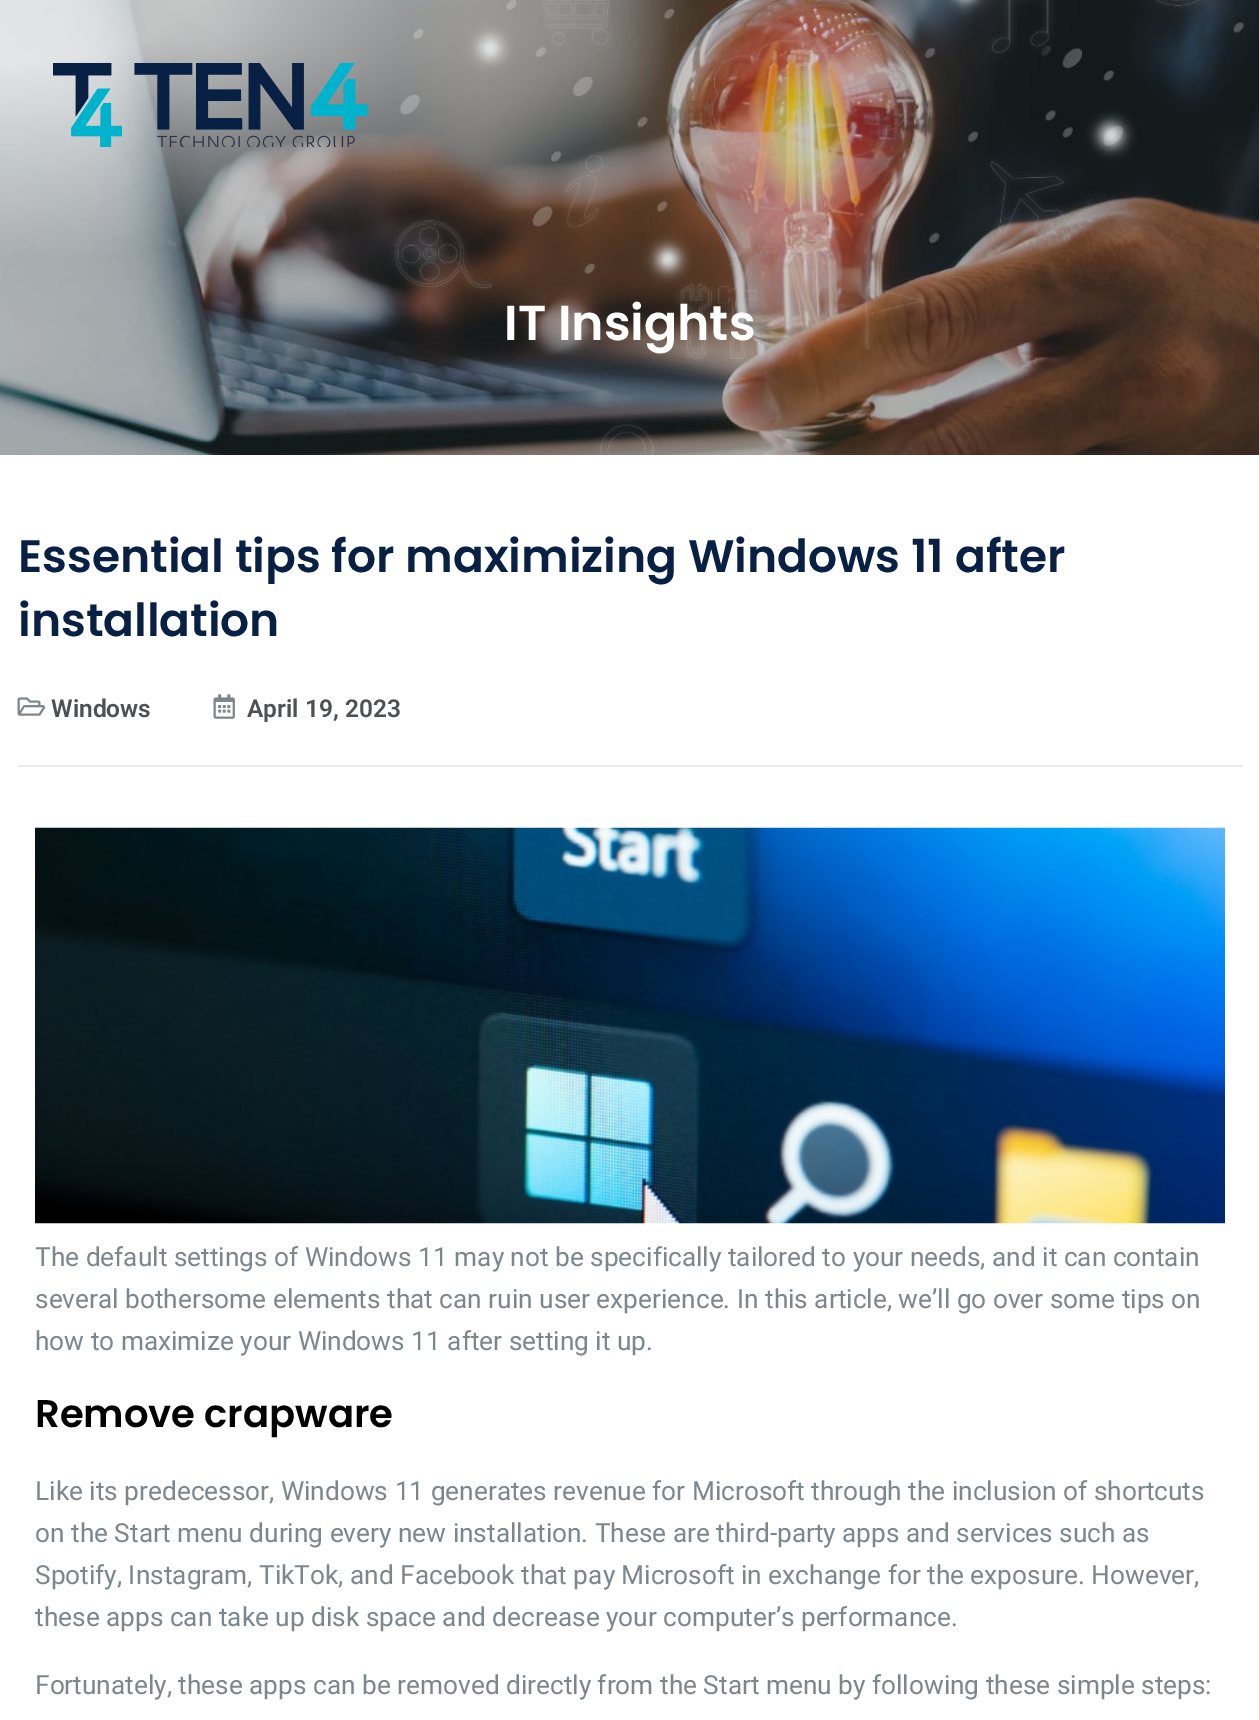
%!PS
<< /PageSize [1259 1720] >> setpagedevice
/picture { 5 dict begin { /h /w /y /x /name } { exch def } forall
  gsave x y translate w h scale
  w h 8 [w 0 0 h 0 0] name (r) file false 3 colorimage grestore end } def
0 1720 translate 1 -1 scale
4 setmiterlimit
1 setgray
0 0 1259 1720 rectfill
(img2.rgb) 0 0 1259 455 picture
(img1.rgb) 53 63 315 84 picture
/Poppins-SemiBold [49 0 0 -49 0 0] selectfont
504 340 moveto (IT Insights) show
/Poppins-SemiBold [45.5 0 0 -45.5 0 0] selectfont
0.031 0.125 0.263 setrgbcolor
18 572 moveto (Essential tips for maximizing Windows 11 after) show
18 636 moveto (installation) show
0.918 setgray
18 765 1225 2 rectfill
(img3.rgb) 17 697 29 19 picture
/Roboto-SemiBold [24.5 0 0 -24.5 0 0] selectfont
0.31 0.314 0.322 setrgbcolor
51 717 moveto (Windows) show
(img4.rgb) 213 694 22 25 picture
247 717 moveto (April 19, 2023) show
(img5.rgb) 35 827 1190 397 picture
/Roboto-Regular [26.25 0 0 -26.25 0 0] selectfont
0.486 0.529 0.553 setrgbcolor
35 1266 moveto (The default settings of Windows 11 may not be specifically tailored to your needs, and it can contain) show
35 1308 moveto (several bothersome elements that can ruin user experience. In this article, we’ll go over some tips on) show
35 1350 moveto (how to maximize your Windows 11 after setting it up.) show
/Poppins-SemiBold [38.5 0 0 -38.5 0 0] selectfont
0 setgray
35 1427 moveto (Remove crapware) show
/Roboto-Regular [26.25 0 0 -26.25 0 0] selectfont
0.486 0.529 0.553 setrgbcolor
35 1500 moveto (Like its predecessor, Windows 11 generates revenue for Microsoft through the inclusion of shortcuts) show
35 1542 moveto (on the Start menu during every new installation. These are third-party apps and services such as) show
35 1584 moveto (Spotify, Instagram, TikTok, and Facebook that pay Microsoft in exchange for the exposure. However,) show
35 1626 moveto (these apps can take up disk space and decrease your computer’s performance.) show
35 1694 moveto (Fortunately, these apps can be removed directly from the Start menu by following these simple steps:) show
showpage
